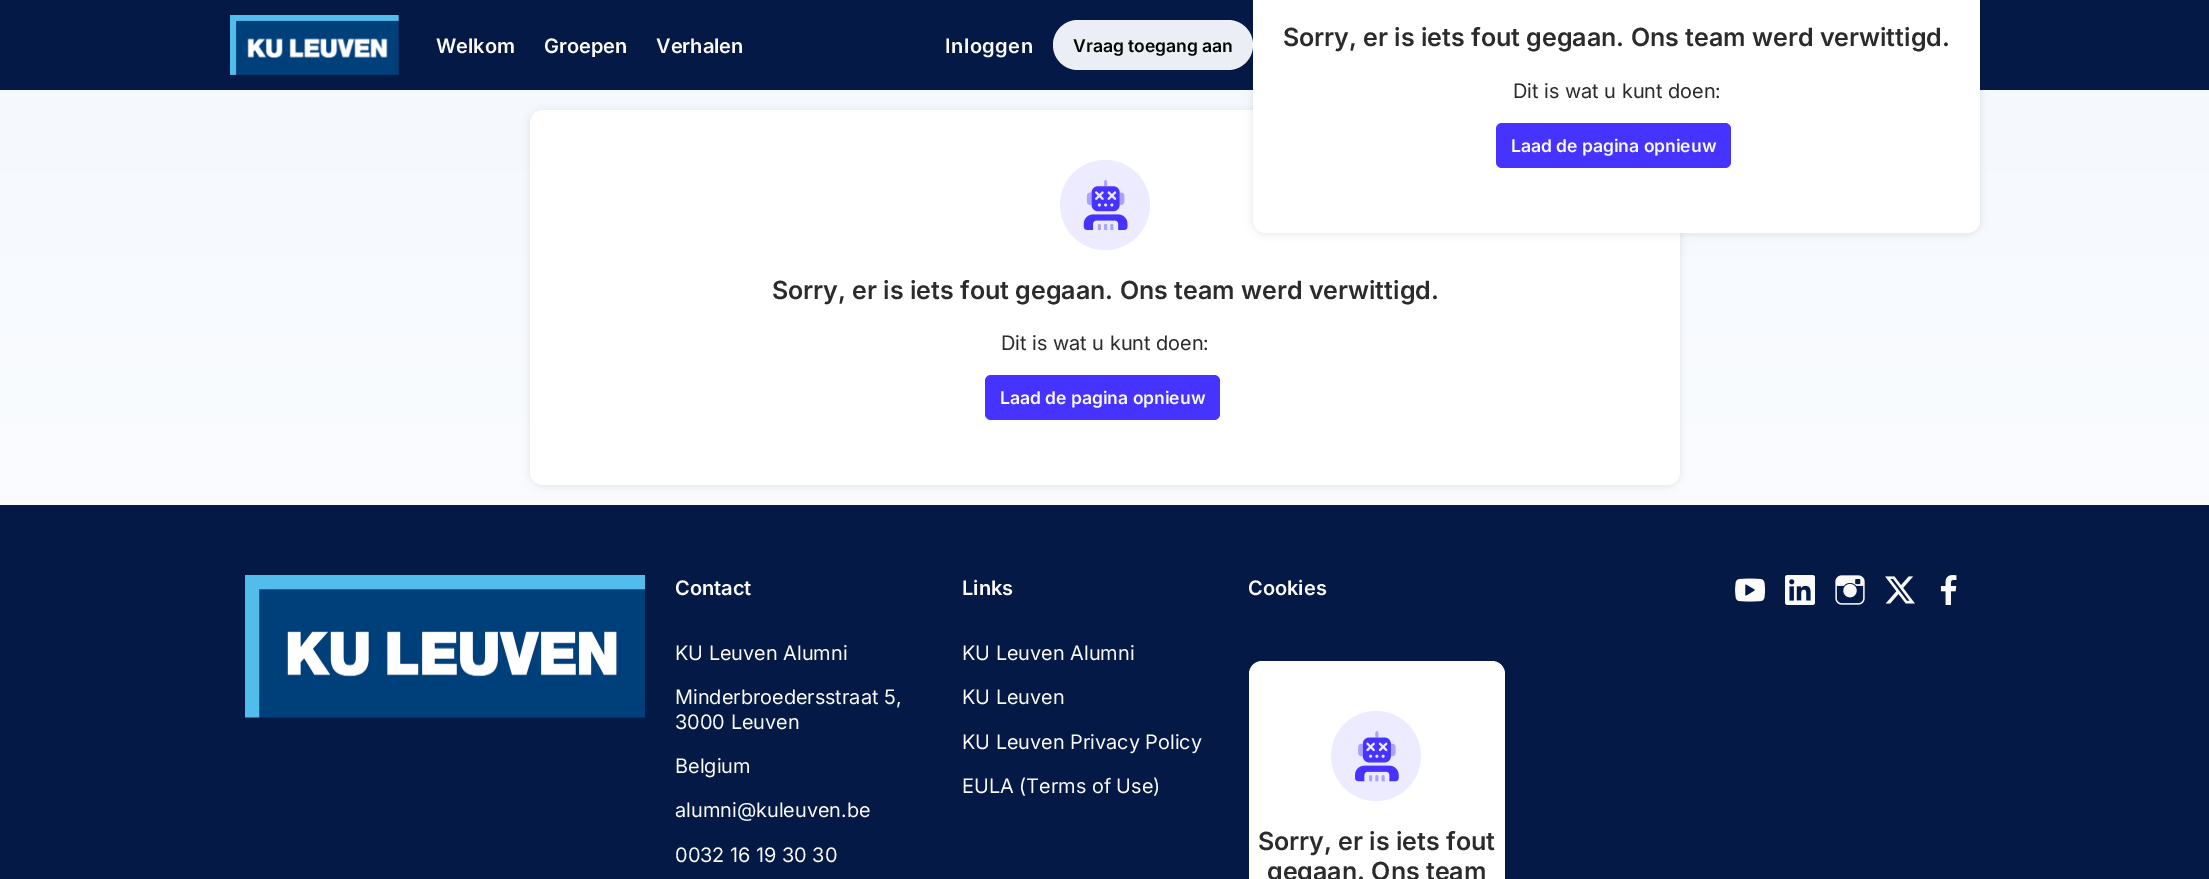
%!PS
<< /PageSize [2209 879] /PageUsesTransparency true >> setpagedevice
/alpha { dup .setfillconstantalpha .setstrokeconstantalpha } def
/roundrect { 5 dict begin { /r /h /w /y /x } { exch def } forall
  x r add y moveto x w add y 2 copy h add r arct x w add y h add x 1 index r arct
  x y h add x y r arct x y 2 copy exch w add exch r arct closepath end } def
/shadow { 12 dict begin { /a /b /q /h /w /y /x } { exch def } forall gsave /was 0 def
  9 -2 -9 { dup b mul 4 div /e exch def 1 sub .425 mul 2.718 exch exp 1 add a .99 .min exch div /now exch def
    1 1 now sub 1 was sub div sub alpha /was now def
    w h .min e 2 mul add 0 gt { x e sub y e sub w e 2 mul add h e 2 mul add
      q e add b .6 mul add w h .min 2 div e add .min 0 .max roundrect fill } if } for grestore end } def
/picture { 5 dict begin { /h /w /y /x /name } { exch def } forall
  gsave x y translate w h scale
  w h 8 [w 0 0 h 0 0] name (r) file false 3 colorimage grestore end } def
0 .pushpdf14devicefilter
0 879 translate 1 -1 scale
4 setmiterlimit
1 setgray
0 0 2209 879 rectfill
gsave newpath 0 90 moveto 2209 90 lineto 2209 505 lineto 0 505 lineto closepath clip newpath
<< /ShadingType 2 /ColorSpace /DeviceRGB /Coords [1105 0 1105 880] /Extend [true true] /Function << /FunctionType 2 /Domain [0 1] /C0 [0.957 0.973 0.996] /C1 [1 1 1] /N 1 >> >> shfill grestore
0.016 0.098 0.271 setrgbcolor
0 0 2209 90 rectfill
(img1.rgb) 230 15 169 60 picture
/Inter-SemiBold [20 0 0 -20 0 0] selectfont
0.98 setgray
436 53 moveto (Welkom) show
544 53 moveto (Groepen) show
656 53 moveto (Verhalen) show
945 53 moveto 0.5 0 (Inloggen) ashow
0 setgray
530 111 1150 375 13 4 0.1 shadow
1 setgray
530 110 1150 375 13 roundrect fill
0 setgray
1253 -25 727 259 13 4 0.1 shadow
0.922 0.933 0.957 setrgbcolor
1053 20 200 50 25 roundrect fill
/Inter-SemiBold [17.5 0 0 -17.5 0 0] selectfont
0.02 setgray
1073 52 moveto (Vraag toegang aan) show
1 setgray
1253 -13 727 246 13 roundrect fill
/Inter-SemiBold [25 0 0 -25 0 0] selectfont
0.169 setgray
1283 46 moveto (Sorry, er is iets fout gegaan. Ons team werd verwittigd.) show
/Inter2-Regular [20 0 0 -20 0 0] selectfont
1513 98 moveto (Dit is wat u kunt doen:) show
0.278 0.2 1 setrgbcolor
1496 123 235 45 6 roundrect fill
/Inter-SemiBold [17.5 0 0 -17.5 0 0] selectfont
0.98 setgray
1511 152 moveto (Laad de pagina opnieuw) show
0.929 0.922 1 setrgbcolor
newpath 1105 205 45 0 360 arc closepath fill
(img2.rgb) 1083 180 45 50 picture
/Inter-SemiBold [25 0 0 -25 0 0] selectfont
0.169 setgray
772 299 moveto (Sorry, er is iets fout gegaan. Ons team werd verwittigd.) show
/Inter2-Regular [20 0 0 -20 0 0] selectfont
1001 350 moveto (Dit is wat u kunt doen:) show
0.278 0.2 1 setrgbcolor
985 375 235 45 6 roundrect fill
/Inter-SemiBold [17.5 0 0 -17.5 0 0] selectfont
0.98 setgray
1000 404 moveto (Laad de pagina opnieuw) show
0.016 0.098 0.271 setrgbcolor
0 505 2209 374 rectfill
(img3.rgb) 245 575 400 143 picture
/Inter-SemiBold [20 0 0 -20 0 0] selectfont
0.98 setgray
675 595 moveto (Contact) show
/Inter-Regular [20 0 0 -20 0 0] selectfont
675 660 moveto (KU Leuven Alumni) show
675 704 moveto (Minderbroedersstraat 5,) show
675 729 moveto (3000 Leuven) show
675 773 moveto (Belgium) show
675 817 moveto (alumni@kuleuven.be) show
675 862 moveto (0032 16 19 30 30) show
/Inter-SemiBold [20 0 0 -20 0 0] selectfont
962 595 moveto (Links) show
/Inter-Regular [20 0 0 -20 0 0] selectfont
962 660 moveto (KU Leuven Alumni) show
962 704 moveto (KU Leuven) show
962 749 moveto (KU Leuven Privacy Policy) show
962 793 moveto (EULA \(Terms of Use\)) show
/Inter-SemiBold [20 0 0 -20 0 0] selectfont
1248 595 moveto (Cookies) show
1 setgray
1249 661 256 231 13 roundrect fill
0.929 0.922 1 setrgbcolor
newpath 1376 756 45 0 360 arc closepath fill
(img4.rgb) 1355 731 44 51 picture
/Inter-SemiBold [25 0 0 -25 0 0] selectfont
0.169 setgray
1258 850 moveto (Sorry, er is iets fout) show
1267 880 moveto (gegaan. Ons team) show
(img5.rgb) 1735 578 31 24 picture
(img6.rgb) 1785 575 30 30 picture
(img7.rgb) 1835 575 30 30 picture
(img8.rgb) 1885 576 30 28 picture
(img9.rgb) 1940 575 17 30 picture
.poppdf14devicefilter showpage
